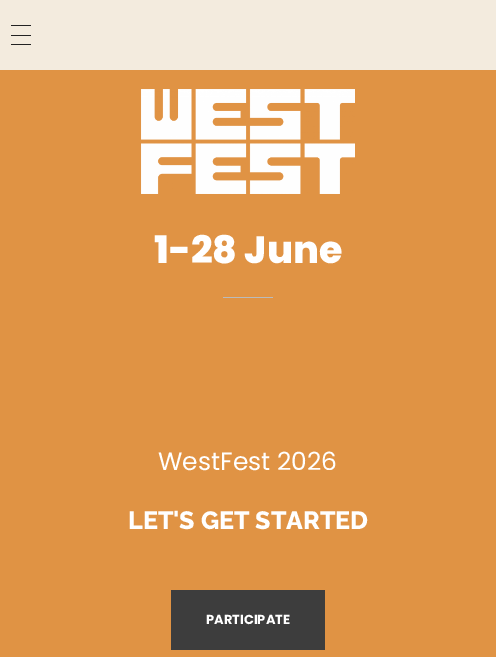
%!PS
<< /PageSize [496 657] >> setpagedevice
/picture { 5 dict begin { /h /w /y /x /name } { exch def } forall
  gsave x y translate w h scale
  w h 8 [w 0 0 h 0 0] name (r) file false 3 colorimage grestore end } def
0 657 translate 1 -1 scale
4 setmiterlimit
0.878 0.576 0.267 setrgbcolor
0 0 496 657 rectfill
0.953 0.922 0.871 setrgbcolor
0 0 496 70 rectfill
0.133 setgray
11 25 20 1 rectfill
11 35 20 1 rectfill
11 44 20 1 rectfill
(img1.rgb) 141 89 214 105 picture
/Poppins-ExtraBold [38 0 0 -38 0 0] selectfont
1 setgray
154 263 moveto (1-28 June) show
0.733 setgray
223 297 50 1 rectfill
/Poppins-Regular [25 0 0 -25 0 0] selectfont
1 setgray
158 470 moveto (WestFest 2026) show
/Raleway-ExtraBold [25 0 0 -25 0 0] selectfont
128 529 moveto (LET'S GET STARTED) show
0.239 setgray
171 590 154 60 rectfill
/Poppins-Bold [13 0 0 -13 0 0] selectfont
1 setgray
206 624 moveto (PARTICIPATE) show
showpage
